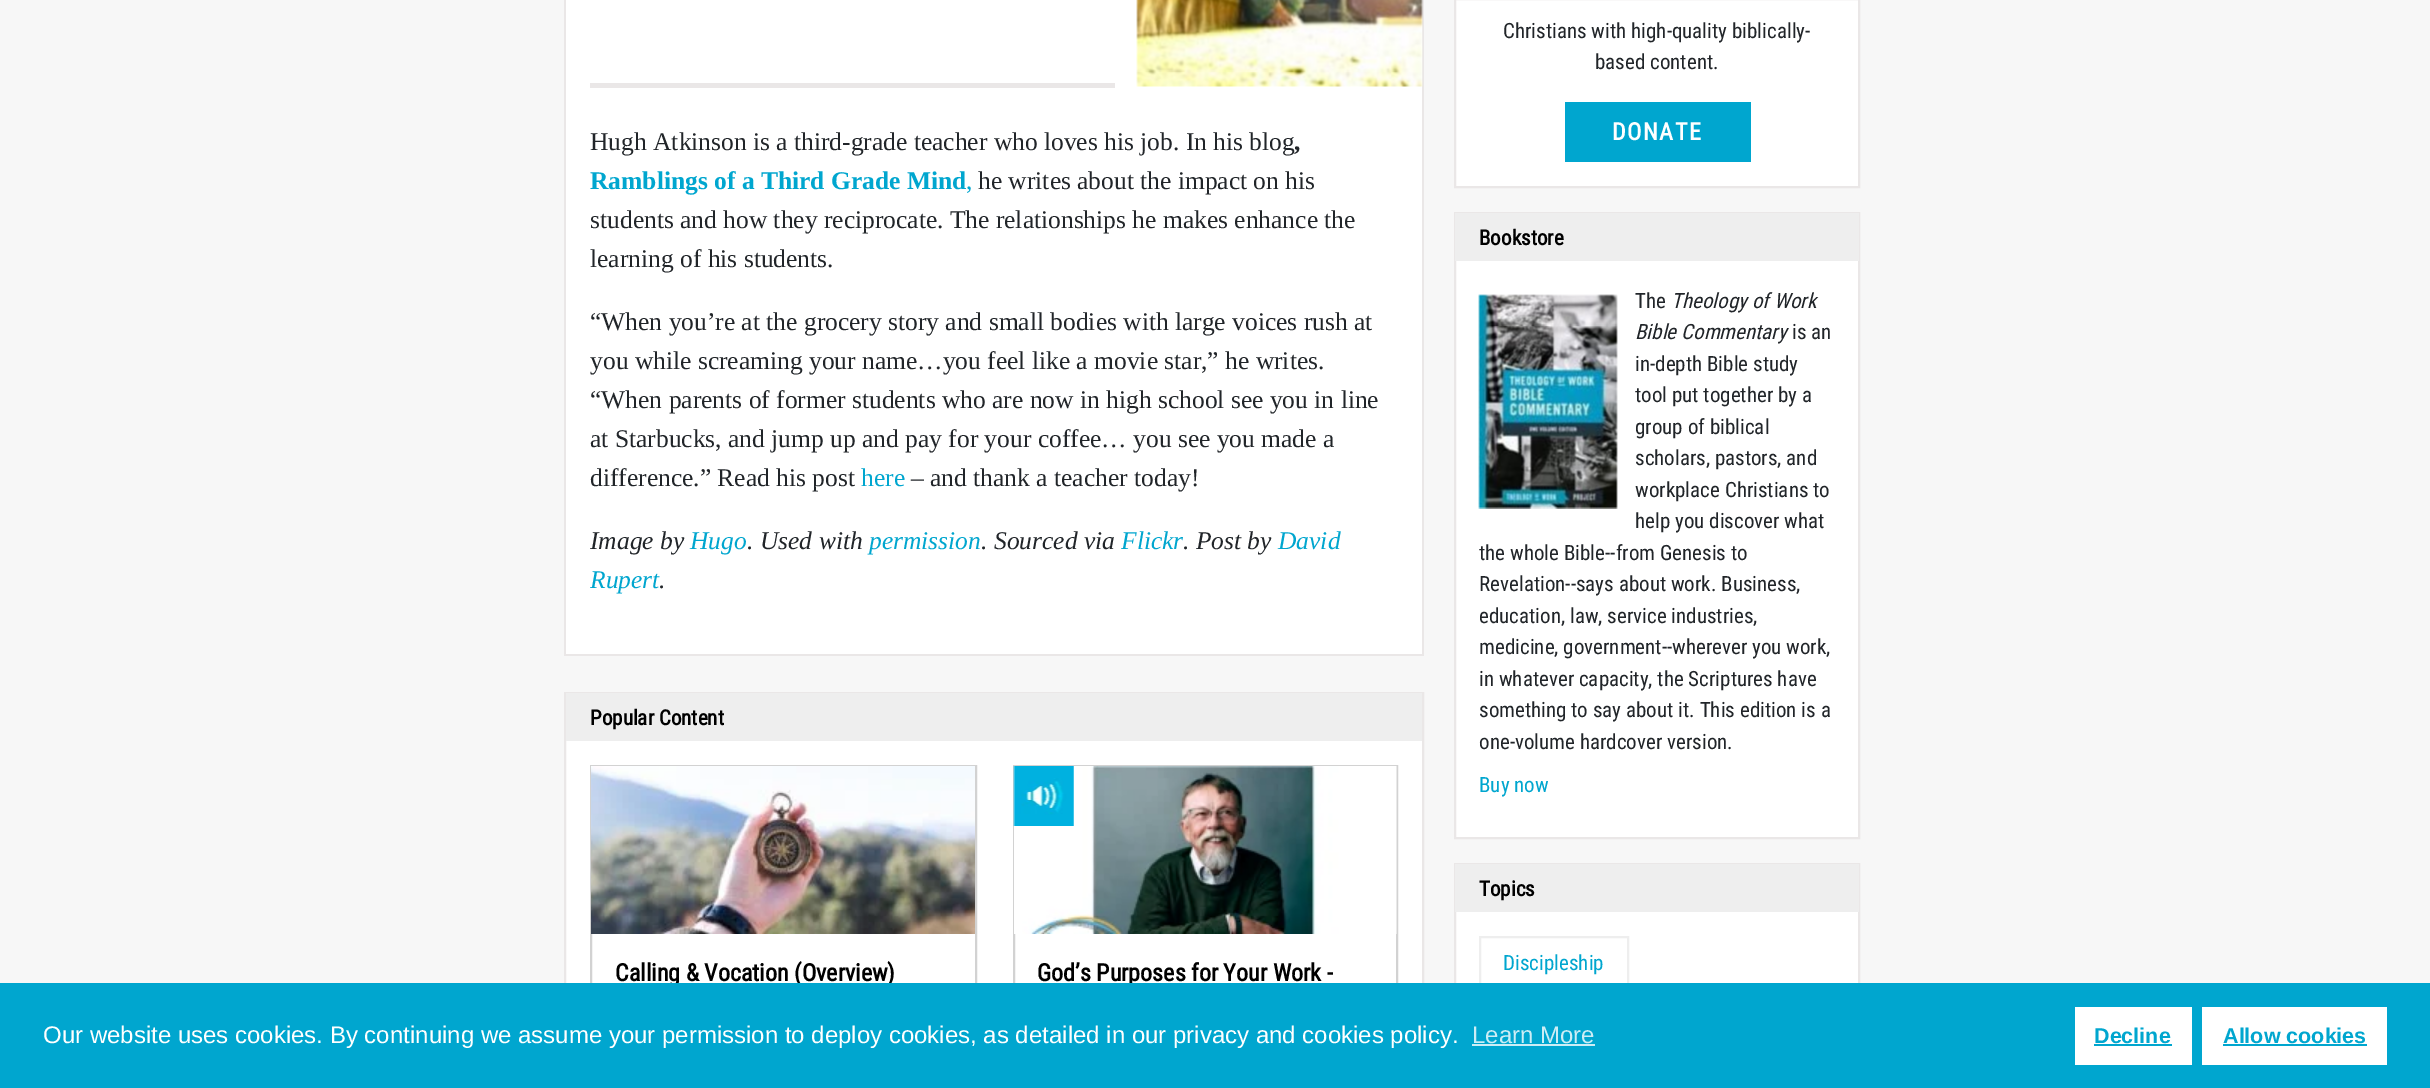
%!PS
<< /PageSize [2430 1088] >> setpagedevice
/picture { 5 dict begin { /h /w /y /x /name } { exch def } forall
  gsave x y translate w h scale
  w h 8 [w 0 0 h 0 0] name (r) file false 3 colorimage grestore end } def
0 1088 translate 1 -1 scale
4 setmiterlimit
0.969 setgray
0 0 2430 1088 rectfill
1 setgray
566 0 856 654 rectfill
0.918 0.906 0.906 setrgbcolor
1422 0 2 656 rectfill
564 0 2 87 rectfill
590 83 525 5 rectfill
(img1.rgb) 1136 0 287 87 picture
564 654 860 2 rectfill
564 87 2 569 rectfill
/LiberationSerif-Regular [25.5 0 0 -25.5 0 0] selectfont
0.129 0.145 0.161 setrgbcolor
590 150 moveto (Hugh Atkinson is a third-grade teacher who loves his job. In his blog) show
/LiberationSerif-Bold [25.5 0 0 -25.5 0 0] selectfont
1294 150 moveto (,) show
0 0.651 0.812 setrgbcolor
590 189 moveto (Ramblings of a Third Grade Mind) show
/LiberationSerif-Regular [25.5 0 0 -25.5 0 0] selectfont
966 189 moveto (,) show
0.129 0.145 0.161 setrgbcolor
978 189 moveto (he writes about the impact on his) show
590 228 moveto (students and how they reciprocate. The relationships he makes enhance the) show
590 267 moveto (learning of his students.) show
590 330 moveto (“When you’re at the grocery story and small bodies with large voices rush at) show
590 369 moveto (you while screaming your name…you feel like a movie star,” he writes.) show
590 408 moveto (“When parents of former students who are now in high school see you in line) show
590 447 moveto (at Starbucks, and jump up and pay for your coffee… you see you made a) show
590 486 moveto (difference.” Read his post) show
0 0.651 0.812 setrgbcolor
861 486 moveto (here) show
0.129 0.145 0.161 setrgbcolor
911 486 moveto (– and thank a teacher today!) show
/LiberationSerif-Italic [25.5 0 0 -25.5 0 0] selectfont
590 549 moveto (Image by) show
0 0.651 0.812 setrgbcolor
690 549 moveto (Hugo) show
0.129 0.145 0.161 setrgbcolor
747 549 moveto (. Used with) show
0 0.651 0.812 setrgbcolor
869 549 moveto (permission) show
0.129 0.145 0.161 setrgbcolor
981 549 moveto (. Sourced via) show
0 0.651 0.812 setrgbcolor
1121 549 moveto (Flickr) show
0.129 0.145 0.161 setrgbcolor
1183 549 moveto (. Post by) show
0 0.651 0.812 setrgbcolor
1278 549 moveto (David) show
590 588 moveto (Rupert) show
0.129 0.145 0.161 setrgbcolor
659 588 moveto (.) show
1 setgray
566 741 856 242 rectfill
0.918 0.906 0.906 setrgbcolor
2 setlinewidth
565 693 858 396 rectstroke
0.933 setgray
566 693 856 48 rectfill
/RobotoCondensed-Bold [21 0 0 -21 0 0] selectfont
0 setgray
590 725 moveto (Popular Content) show
0.824 setgray
591 766 385 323 rectstroke
(img2.rgb) 591 766 384 168 picture
/RobotoCondensed-Bold [24 0 0 -24 0 0] selectfont
0 setgray
615 981 moveto (Calling & Vocation \(Overview\)) show
0.824 setgray
1014 766 383 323 rectstroke
(img4.rgb) 1014 766 383 168 picture
(img3.rgb) 1013 766 61 60 picture
0 setgray
1037 981 moveto (God’s Purposes for Your Work -) show
1 setgray
newpath 1455 -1 moveto 1859 -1 lineto 1859 187 lineto 1455 187 lineto closepath gsave fill grestore
0.918 0.906 0.906 setrgbcolor
stroke
/RobotoCondensed-Regular [21 0 0 -21 0 0] selectfont
0.129 0.145 0.161 setrgbcolor
1503 38 moveto (Christians with high-quality biblically-) show
1595 69 moveto (based content.) show
0 0.651 0.812 setrgbcolor
1565 102 186 60 rectfill
/RobotoCondensed-Bold [24 0 0 -24 0 0] selectfont
1 setgray
1612 140 moveto 1.5 0 (DONATE) ashow
1456 261 402 576 rectfill
0.918 0.906 0.906 setrgbcolor
1455 213 404 625 rectstroke
0.933 setgray
1455 213 404 48 rectfill
/RobotoCondensed-Bold [21 0 0 -21 0 0] selectfont
0 setgray
1479 245 moveto (Bookstore) show
/RobotoCondensed-Regular [21 0 0 -21 0 0] selectfont
0.129 0.145 0.161 setrgbcolor
1635 308 moveto (The) show
/RobotoCondensed-Italic [21 0 0 -21 0 0] selectfont
1671 308 moveto (Theology of Work) show
1635 339 moveto (Bible Commentary) show
/RobotoCondensed-Regular [21 0 0 -21 0 0] selectfont
1792 339 moveto (is an) show
1635 371 moveto (in-depth Bible study) show
1635 402 moveto (tool put together by a) show
1635 434 moveto (group of biblical) show
1635 465 moveto (scholars, pastors, and) show
1635 497 moveto (workplace Christians to) show
1635 528 moveto (help you discover what) show
1479 560 moveto (the whole Bible--from Genesis to) show
1479 591 moveto (Revelation--says about work. Business,) show
1479 623 moveto (education, law, service industries,) show
1479 654 moveto (medicine, government--wherever you work,) show
1479 686 moveto (in whatever capacity, the Scriptures have) show
1479 717 moveto (something to say about it. This edition is a) show
1479 749 moveto (one-volume hardcover version.) show
(img5.rgb) 1478 294 140 215 picture
0 0.651 0.812 setrgbcolor
1479 792 moveto (Buy now) show
1 setgray
1456 912 402 71 rectfill
0.918 0.906 0.906 setrgbcolor
1455 864 404 161 rectstroke
0.933 setgray
1455 864 404 48 rectfill
/RobotoCondensed-Bold [21 0 0 -21 0 0] selectfont
0 setgray
1479 896 moveto (Topics) show
0.933 setgray
1480 937 148 48 rectstroke
/RobotoCondensed-Regular [21 0 0 -21 0 0] selectfont
0 0.651 0.812 setrgbcolor
1503 970 moveto (Discipleship) show
0 983 2430 105 rectfill
/LiberationSans-Regular [24 0 0 -24 0 0] selectfont
1 setgray
43 1043 moveto (Our website uses cookies. By continuing we assume your permission to deploy cookies, as detailed in our privacy and cookies policy.) show
0.8 0.929 0.961 setrgbcolor
1472 1043 moveto (Learn More) show
1472 1044 123 2 rectfill
1 setgray
2075 1007 117 58 rectfill
/LiberationSans-Bold [21.5 0 0 -21.5 0 0] selectfont
0 0.651 0.812 setrgbcolor
2094 1043 moveto (Decline) show
2094 1044 78 2 rectfill
1 setgray
2202 1007 185 58 rectfill
0 0.651 0.812 setrgbcolor
2223 1043 moveto (Allow cookies) show
2223 1044 144 2 rectfill
showpage
